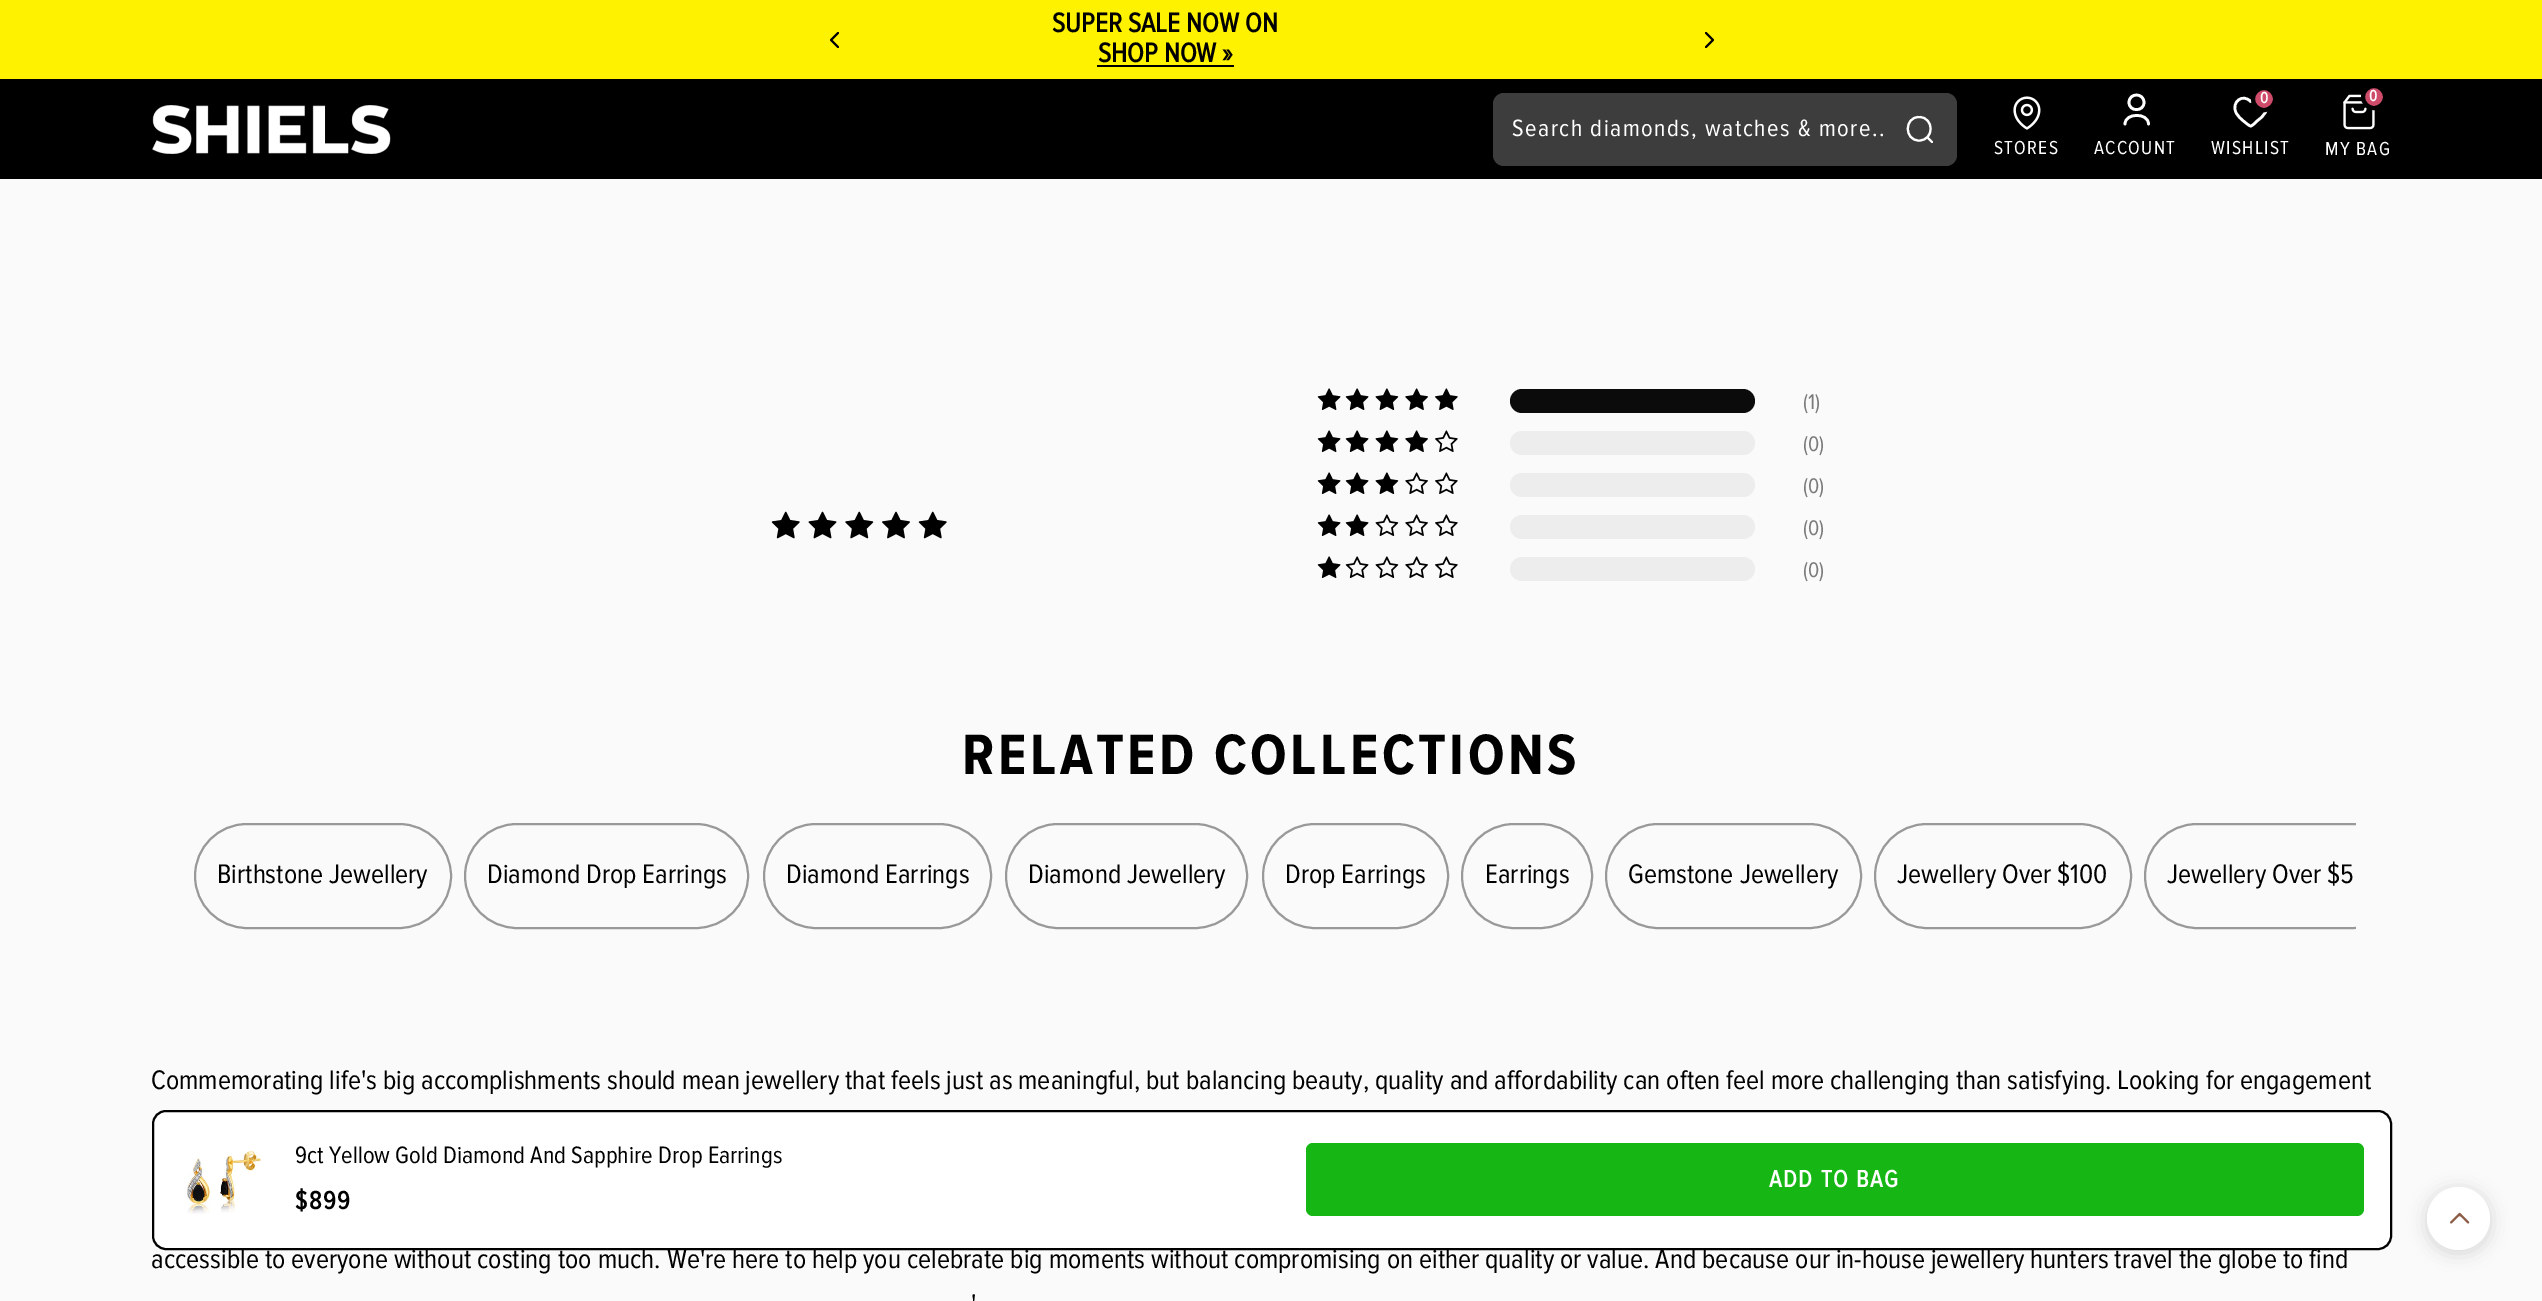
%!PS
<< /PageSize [2542 1301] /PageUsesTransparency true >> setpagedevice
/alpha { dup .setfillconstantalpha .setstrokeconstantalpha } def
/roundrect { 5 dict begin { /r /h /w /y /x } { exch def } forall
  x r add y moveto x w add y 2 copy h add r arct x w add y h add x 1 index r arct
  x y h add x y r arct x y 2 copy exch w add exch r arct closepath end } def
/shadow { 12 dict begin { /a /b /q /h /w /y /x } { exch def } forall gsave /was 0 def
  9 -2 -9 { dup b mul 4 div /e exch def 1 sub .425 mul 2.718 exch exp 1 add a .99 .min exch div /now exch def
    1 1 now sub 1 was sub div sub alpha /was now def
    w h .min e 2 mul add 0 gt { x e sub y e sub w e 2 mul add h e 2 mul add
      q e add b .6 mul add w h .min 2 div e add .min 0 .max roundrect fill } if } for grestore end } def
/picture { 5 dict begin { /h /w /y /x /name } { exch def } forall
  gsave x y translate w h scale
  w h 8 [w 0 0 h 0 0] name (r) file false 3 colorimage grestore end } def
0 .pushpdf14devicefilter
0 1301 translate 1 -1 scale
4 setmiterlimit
0.98 setgray
0 0 2542 1301 rectfill
1 0.949 0 setrgbcolor
0 0 2542 79 rectfill
0 setgray
2.1 setlinewidth
1 setlinecap
1 setlinejoin
newpath 838 33 moveto 831 40 lineto 838 47 lineto stroke
/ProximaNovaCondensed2-Bold [28 0 0 -28 0 0] selectfont
1052 32 moveto (SUPER SALE NOW ON) show
1098 62 moveto (SHOP NOW ») show
1097 65 137 2 rectfill
newpath 1706 33 moveto 1713 40 lineto 1706 47 lineto stroke
0 79 2542 100 rectfill
(img1.rgb) 152 105 239 49 picture
0.239 setgray
1493 93 464 73 11 roundrect fill
/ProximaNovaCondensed-Regular [24.5 0 0 -24.5 0 0] selectfont
1 setgray
1512 136 moveto 1.5 0 (Search diamonds, watches & more..) ashow
newpath 1919 117 moveto 1934.5 117 1934.5 140.5 1919 140.5 curveto 1904 140.5 1904 117 1919 117 curveto closepath 1927.5 137.5 moveto 1932 142 lineto stroke
2.6 setlinewidth
newpath 2250.5 101.5 moveto 2243 93 2231 102 2236 112.5 curveto 2237.5 116 2241 119 2244 121.5 curveto 2245.5 122.5 2248.5 125.5 2250.5 126 curveto 2252.5 126 2256.5 121.5 2257 121 curveto 2260.5 118.5 2263.5 116 2265.5 112 curveto 2269.5 101.5 2257.5 93.5 2250.5 101.5 curveto closepath stroke
0.808 0.298 0.416 setrgbcolor
newpath 2264 99 11 0 360 arc closepath gsave fill grestore
0 setgray
4 setlinewidth
0 setlinecap
0 setlinejoin
stroke
/ProximaNovaCondensed2-Bold [16 0 0 -16 0 0] selectfont
1 setgray
2260 103 moveto (0) show
/ProximaNovaCondensed-Regular [19.5 0 0 -19.5 0 0] selectfont
2211 154 moveto 1.25 0 (WISHLIST) ashow
(img2.rgb) 2343 94 32 36 picture
0.808 0.298 0.416 setrgbcolor
newpath 2374 97 11 0 360 arc closepath gsave fill grestore
0 setgray
stroke
/ProximaNovaCondensed2-Bold [16 0 0 -16 0 0] selectfont
1 setgray
2369 101 moveto (0) show
/ProximaNovaCondensed-Regular [19.5 0 0 -19.5 0 0] selectfont
2325 155 moveto 1.25 0 (MY BAG) ashow
(img3.rgb) 2013 96 28 34 picture
1994 154 moveto 1.25 0 (STORES) ashow
2.7 setlinewidth
1 setlinecap
1 setlinejoin
newpath 2125 124 moveto 2125 112.5 2148.5 112.5 2148.5 124 curveto 2144 102.5 moveto 2144 112 2129 112 2129 102.5 curveto 2129 92.5 2144 92.5 2144 102.5 curveto closepath stroke
2094 154 moveto 1.25 0 (ACCOUNT) ashow
(img4.rgb) 771 511 29 28 picture
(img5.rgb) 808 511 29 28 picture
(img6.rgb) 845 511 29 28 picture
(img7.rgb) 882 511 28 28 picture
(img4.rgb) 918 511 29 28 picture
(img8.rgb) 1317 388 24 22 picture
(img8.rgb) 1345 388 24 22 picture
(img9.rgb) 1375 388 24 22 picture
(img10.rgb) 1405 388 23 22 picture
(img11.rgb) 1435 388 23 22 picture
0.043 setgray
1510 389 245 24 12 roundrect fill
/ProximaNovaCondensed-Regular [22 0 0 -22 0 0] selectfont
0.482 setgray
1803 409 moveto (\(1\)) show
(img8.rgb) 1317 430 24 22 picture
(img8.rgb) 1345 430 24 22 picture
(img9.rgb) 1375 430 24 22 picture
(img10.rgb) 1405 430 23 22 picture
(img12.rgb) 1435 430 23 22 picture
0.929 setgray
1510 431 245 24 12 roundrect fill
0.482 setgray
1803 451 moveto (\(0\)) show
(img8.rgb) 1317 472 24 22 picture
(img8.rgb) 1345 472 24 22 picture
(img9.rgb) 1375 472 24 22 picture
(img13.rgb) 1405 472 23 22 picture
(img12.rgb) 1435 472 23 22 picture
0.929 setgray
1510 473 245 24 12 roundrect fill
0.482 setgray
1803 493 moveto (\(0\)) show
(img8.rgb) 1317 514 24 22 picture
(img8.rgb) 1345 514 24 22 picture
(img14.rgb) 1375 514 24 22 picture
(img13.rgb) 1405 514 23 22 picture
(img12.rgb) 1435 514 23 22 picture
0.929 setgray
1510 515 245 24 12 roundrect fill
0.482 setgray
1803 535 moveto (\(0\)) show
(img8.rgb) 1317 556 24 22 picture
(img15.rgb) 1345 556 24 22 picture
(img14.rgb) 1375 556 24 22 picture
(img13.rgb) 1405 556 23 22 picture
(img12.rgb) 1435 556 23 22 picture
0.929 setgray
1510 557 245 24 12 roundrect fill
0.482 setgray
1803 577 moveto (\(0\)) show
/ProximaNovaCondensed-Bold [59 0 0 -59 0 0] selectfont
0 setgray
962 774 moveto 3.5 0 (RELATED COLLECTIONS) ashow
0.6 setgray
2 setlinewidth
0 setlinecap
0 setlinejoin
195 824 256 104 52 roundrect stroke
/ProximaNovaCondensed-Regular [27.9 0 0 -27.9 0 0] selectfont
0 setgray
217 883 moveto (Birthstone Jewellery) show
0.6 setgray
465 824 283 104 52 roundrect stroke
0 setgray
487 883 moveto (Diamond Drop Earrings) show
0.6 setgray
764 824 227 104 52 roundrect stroke
0 setgray
786 883 moveto (Diamond Earrings) show
0.6 setgray
1006 824 241 104 52 roundrect stroke
0 setgray
1028 883 moveto (Diamond Jewellery) show
0.6 setgray
1263 824 185 104 52 roundrect stroke
0 setgray
1285 883 moveto (Drop Earrings) show
0.6 setgray
1462 824 130 104 52 roundrect stroke
0 setgray
1485 883 moveto (Earrings) show
0.6 setgray
1606 824 255 104 52 roundrect stroke
0 setgray
1628 883 moveto (Gemstone Jewellery) show
0.6 setgray
1875 824 256 104 52 roundrect stroke
0 setgray
1897 883 moveto (Jewellery Over $100) show
gsave
187 823 2169 115 rectclip
0.6 setgray
2145 824 259 104 52 roundrect stroke
grestore
2167 883 moveto (Jewellery Over $5) show
151 1089 moveto -0.15 0 32 (Commemorating life's big accomplishments should mean jewellery that feels just as meaningful, but balancing beauty, quality and affordability can often feel more challenging than satisfying. Looking for engagement) widthshow
151 1268 moveto (accessible to everyone without costing too much. We're here to help you celebrate big moments without compromising on either quality or value. And because our in-house jewellery hunters travel the globe to find) show
971 1313 moveto (') show
1 setgray
153 1111 2238 138 13 roundrect gsave fill grestore
0 setgray
stroke
(img16.rgb) 187 1150 75 64 picture
/ProximaNovaCondensed-Regular [24.6 0 0 -24.6 0 0] selectfont
295 1163 moveto (9ct Yellow Gold Diamond And Sapphire Drop Earrings) show
/ProximaNovaCondensed2-Bold [26 0 0 -26 0 0] selectfont
295 1209 moveto 1.5 0 ($899) ashow
0.086 0.718 0.082 setrgbcolor
1306 1143 1058 73 7 roundrect fill
/ProximaNovaCondensed2-Bold [24.6 0 0 -24.6 0 0] selectfont
1 setgray
1769 1187 moveto 1.5 0 (ADD TO BAG) ashow
0 setgray
2427 1190 63 63 31.5 9 0.15 shadow
1 setgray
newpath 2458.5 1218.5 31.5 0 360 arc closepath fill
(img17.rgb) 2450 1212 20 12 picture
.poppdf14devicefilter showpage
